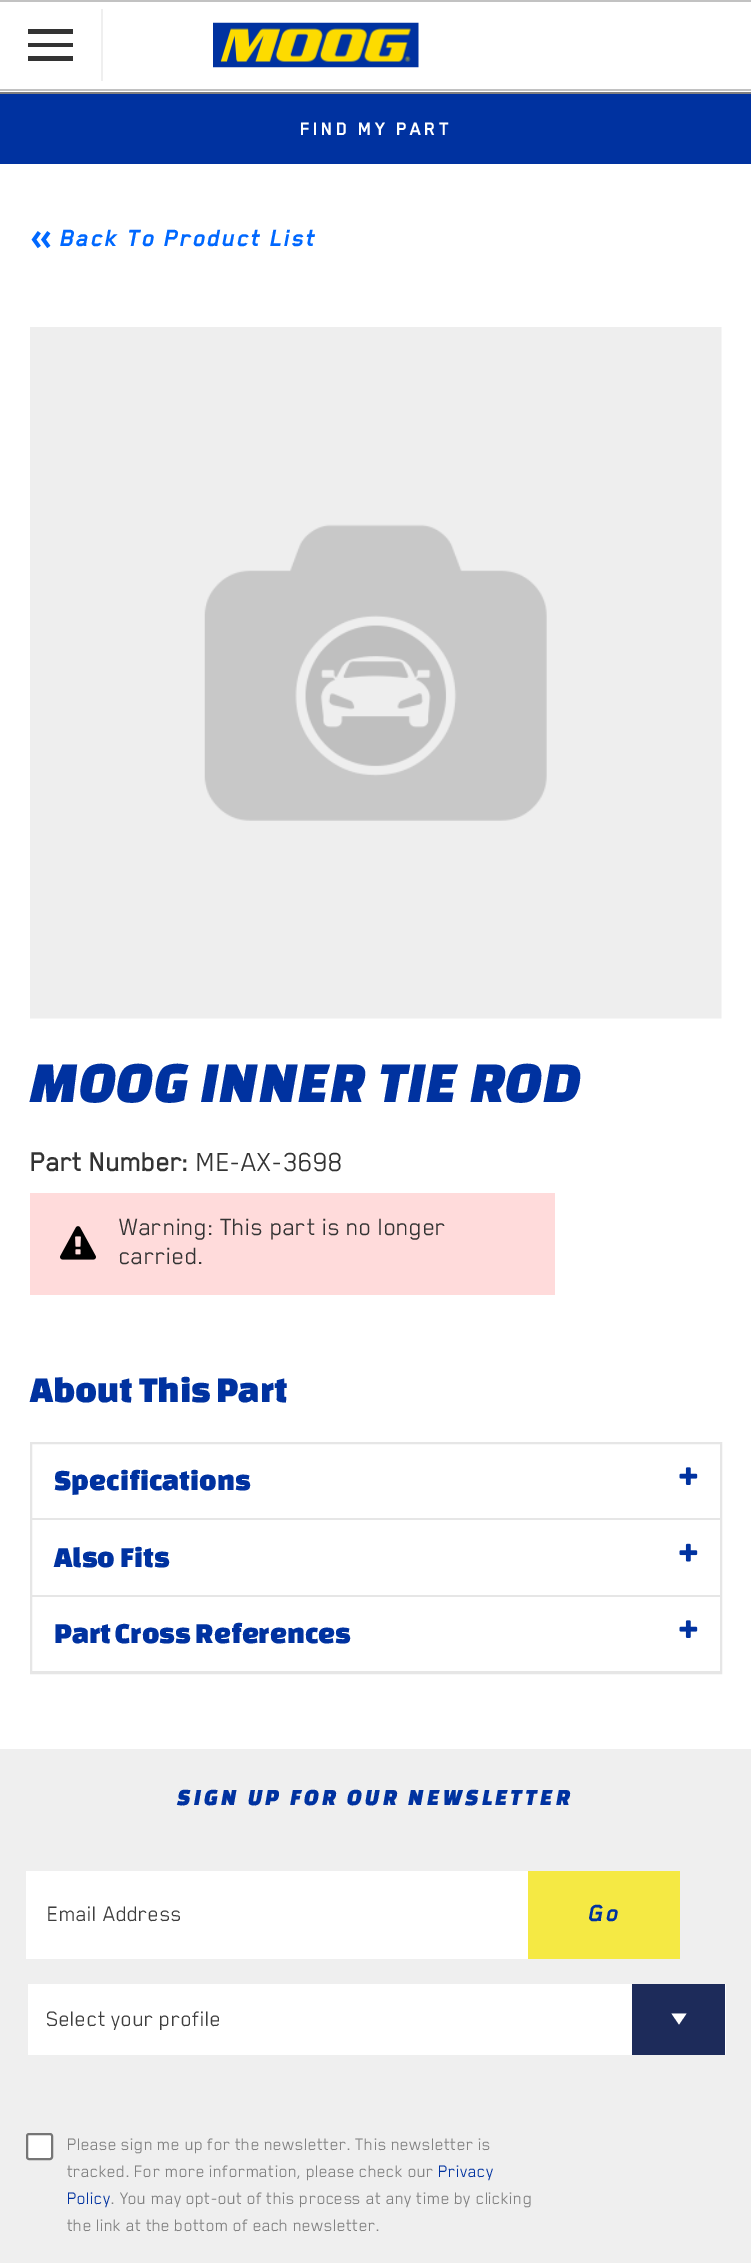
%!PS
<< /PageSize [751 2263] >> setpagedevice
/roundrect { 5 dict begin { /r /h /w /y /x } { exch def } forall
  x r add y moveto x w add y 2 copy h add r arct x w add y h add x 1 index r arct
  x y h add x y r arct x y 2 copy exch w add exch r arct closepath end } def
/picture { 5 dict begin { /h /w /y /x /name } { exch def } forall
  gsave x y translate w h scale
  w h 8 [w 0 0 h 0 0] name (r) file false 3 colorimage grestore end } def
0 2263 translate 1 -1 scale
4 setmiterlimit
1 setgray
0 0 751 2263 rectfill
0.761 setgray
0 0 751 2 rectfill
0 89 751 2 rectfill
0.937 setgray
101 9 2 72 rectfill
0.2 setgray
newpath 28 43 moveto 73 43 lineto 73 47 lineto 28 47 lineto closepath 28 56 moveto 73 56 lineto 73 61 lineto 28 61 lineto closepath 28 29 moveto 73 29 lineto 73 34 lineto 28 34 lineto closepath fill
(img1.rgb) 213 22 206 46 picture
0 0.196 0.627 setrgbcolor
0 94 751 70 rectfill
0.502 setgray
0 92 751 2 rectfill
/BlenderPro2-Bold [21 0 0 -21 0 0] selectfont
1 setgray
300 135 moveto 2.75 0 (FIND MY PART) ashow
(img2.rgb) 31 231 20 18 picture
/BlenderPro-BoldItalic [27 0 0 -27 0 0] selectfont
0 0.408 1 setrgbcolor
59 246 moveto 1.5 0 (Back To Product List) ashow
(img3.rgb) 30 327 692 692 picture
/ChangaOne-Italic [60 0 0 -60 0 0] selectfont
0 0.196 0.627 setrgbcolor
30 1102 moveto (MOOG INNER TIE ROD) show
/BlenderPro-Bold [30 0 0 -30 0 0] selectfont
0.2 setgray
30 1171 moveto (Part Number:) show
/BlenderPro-Regular [30 0 0 -30 0 0] selectfont
196 1171 moveto (ME-AX-3698) show
1 0.859 0.859 setrgbcolor
30 1193 525 102 rectfill
(img4.rgb) 60 1226 36 34 picture
/BlenderPro-Regular [27 0 0 -27 0 0] selectfont
0.2 setgray
119 1235 moveto (Warning: This part is no longer) show
119 1264 moveto (carried.) show
/ChangaOne-Regular [37.5 0 0 -37.5 0 0] selectfont
0 0.196 0.627 setrgbcolor
30 1402 moveto (About This Part) show
0.902 setgray
2 setlinewidth
31 1443 690 230 rectstroke
32 1518 688 2 rectfill
/ChangaOne-Regular [30 0 0 -30 0 0] selectfont
0 0.196 0.627 setrgbcolor
54 1490 moveto (Specifications) show
(img5.rgb) 679 1467 19 18 picture
0.902 setgray
32 1595 688 2 rectfill
0 0.196 0.627 setrgbcolor
54 1567 moveto (Also Fits) show
(img6.rgb) 679 1543 19 19 picture
0.902 setgray
32 1671 688 1 rectfill
0 0.196 0.627 setrgbcolor
54 1643 moveto (Part Cross References) show
(img5.rgb) 679 1620 19 18 picture
0.937 setgray
0 1749 751 514 rectfill
/ChangaOne-Italic [24 0 0 -24 0 0] selectfont
0 0.196 0.627 setrgbcolor
177 1805 moveto 3 0 (SIGN UP FOR OUR NEWSLETTER) ashow
1 setgray
26 1871 502 88 rectfill
/BlenderPro-Regular [24 0 0 -24 0 0] selectfont
0.243 setgray
47 1921 moveto (Email Address) show
0.961 0.914 0.267 setrgbcolor
528 1871 152 88 rectfill
/BlenderPro-BoldItalic [27 0 0 -27 0 0] selectfont
0 0.196 0.627 setrgbcolor
587 1921 moveto 1.5 0 (Go) ashow
1 setgray
28 1984 698 71 rectfill
0.114 0.169 0.353 setrgbcolor
632 1984 93 71 rectfill
1 setgray
newpath 671.5 2013.5 moveto 686.5 2013.5 lineto 679 2024.5 lineto closepath fill
gsave
47 2007 577 24 rectclip
/BlenderPro-Regular [24 0 0 -24 0 0] selectfont
0.243 setgray
46 2026 moveto (Select your profile) show
grestore
27 2134 25 25 2 roundrect gsave fill grestore
0.463 setgray
stroke
/BlenderPro-Regular [19.2 0 0 -19.2 0 0] selectfont
0.502 setgray
67 2150 moveto (Please sign me up for the newsletter. This newsletter is) show
67 2177 moveto (tracked. For more information, please check our) show
0 0.196 0.627 setrgbcolor
438 2177 moveto (Privacy) show
67 2204 moveto (Policy) show
0.502 setgray
111 2204 moveto (. You may opt-out of this process at any time by clicking) show
67 2231 moveto (the link at the bottom of each newsletter.) show
showpage
